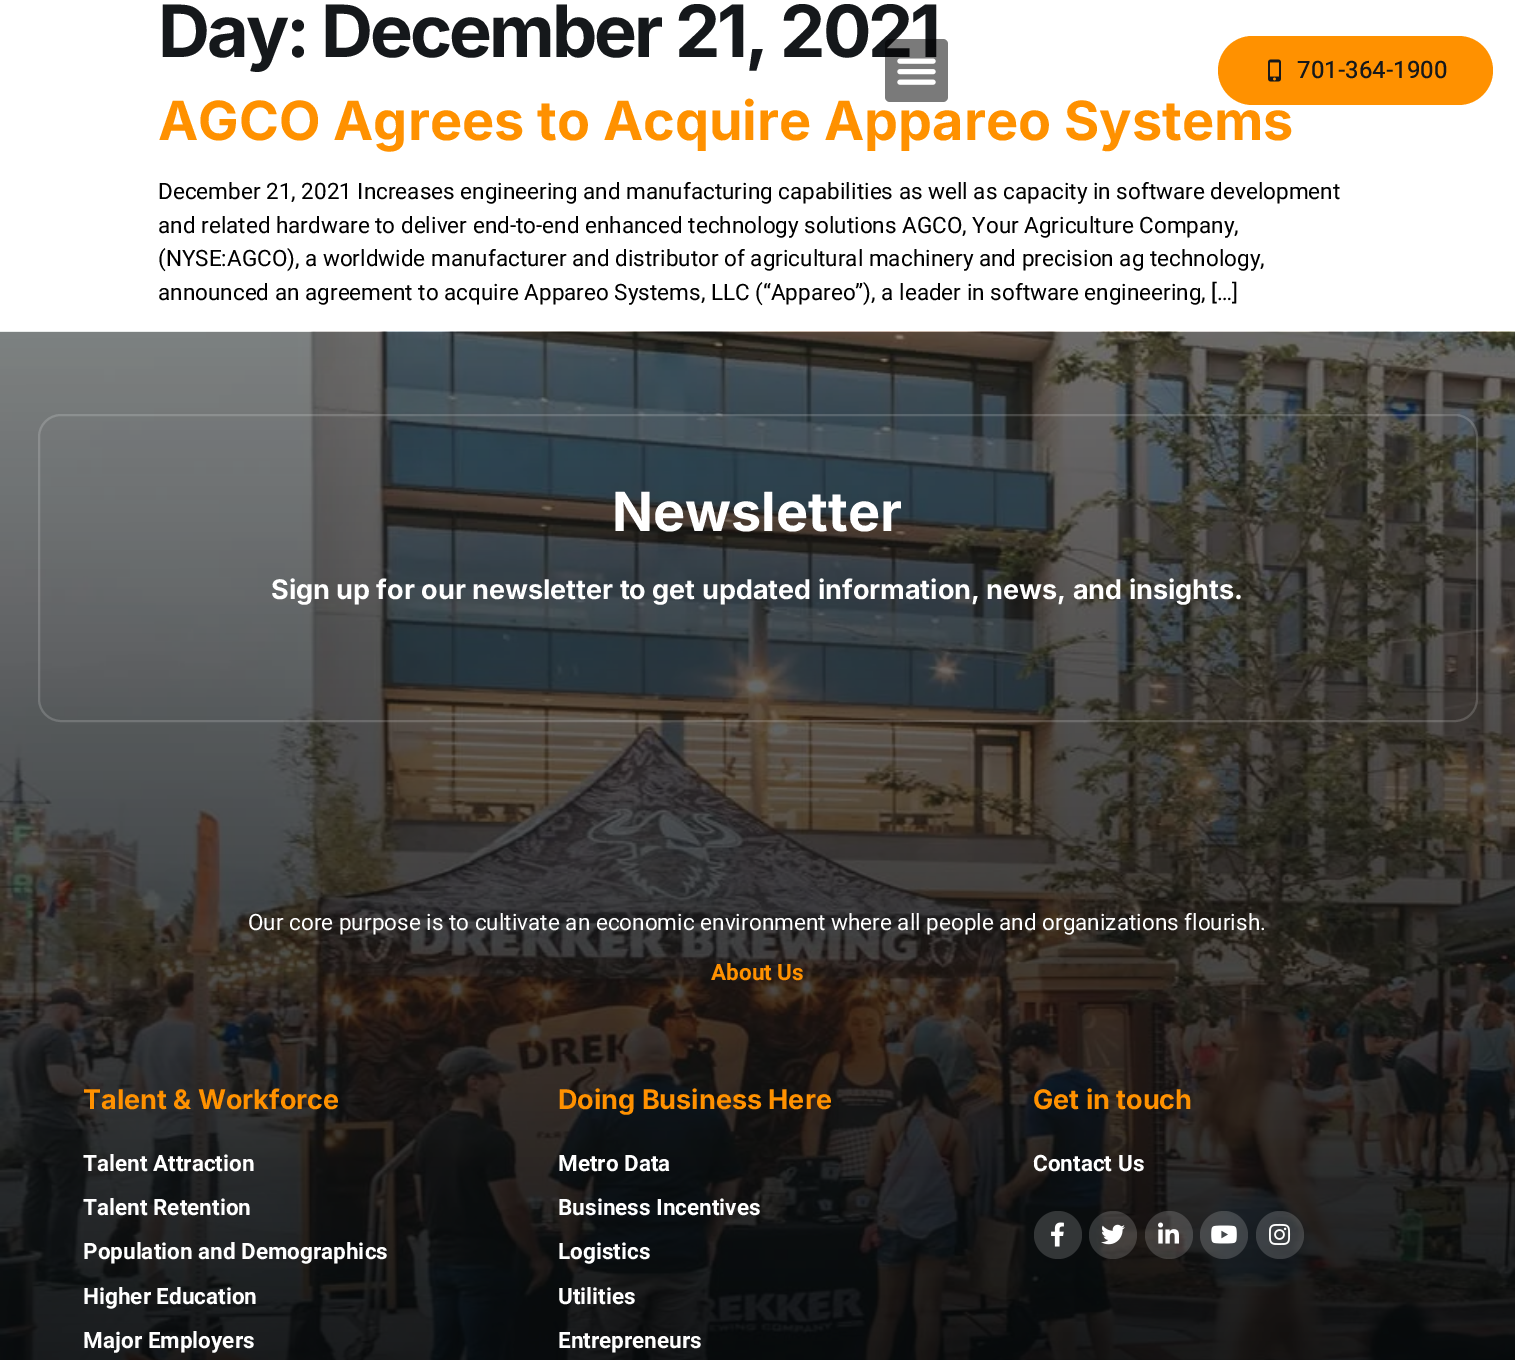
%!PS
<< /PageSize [1515 1360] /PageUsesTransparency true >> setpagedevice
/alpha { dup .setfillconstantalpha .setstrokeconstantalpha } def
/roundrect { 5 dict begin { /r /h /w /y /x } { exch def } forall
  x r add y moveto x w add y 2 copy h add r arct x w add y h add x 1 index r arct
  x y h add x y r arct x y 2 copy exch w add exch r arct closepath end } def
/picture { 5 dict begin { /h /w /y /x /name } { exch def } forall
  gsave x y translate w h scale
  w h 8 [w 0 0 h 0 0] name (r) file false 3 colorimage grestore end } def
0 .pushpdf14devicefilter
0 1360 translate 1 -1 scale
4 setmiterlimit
1 setgray
0 0 1515 1360 rectfill
/Inter-Bold [72 0 0 -72 0 0] selectfont
0.082 0.094 0.106 setrgbcolor
158 57 moveto -3 0 (Day: December 21, 2021) ashow
/Inter-Bold [54 0 0 -54 0 0] selectfont
1 0.569 0 setrgbcolor
158 140 moveto (AGCO Agrees to Acquire Appareo Systems) show
/Heebo-Regular [22.5 0 0 -22.5 0 0] selectfont
0 setgray
158 199 moveto (December 21, 2021 Increases engineering and manufacturing capabilities as well as capacity in software development) show
158 233 moveto (and related hardware to deliver end-to-end enhanced technology solutions AGCO, Your Agriculture Company,) show
158 266 moveto (\(NYSE:AGCO\), a worldwide manufacturer and distributor of agricultural machinery and precision ag technology,) show
158 300 moveto (announced an agreement to acquire Appareo Systems, LLC \(“Appareo”\), a leader in software engineering, […]) show
0.52 alpha
885 39 63 63 5 roundrect fill
1 alpha
(img1.rgb) 897 58 39 27 picture
1 0.569 0 setrgbcolor
1218 36 275 69 34.5 roundrect fill
(img2.rgb) 1268 59 13 23 picture
/Heebo-Medium [24 0 0 -24 0 0] selectfont
0.082 0.094 0.106 setrgbcolor
1297 78 moveto (701-364-1900) show
(img3.rgb) 0 331 1515 1029 picture
0.17 alpha
1 setgray
2 setlinewidth
39 415 1438 306 22 roundrect stroke
/Inter-Bold [54 0 0 -54 0 0] selectfont
1 alpha
612 531 moveto (Newsletter) show
/Inter-Bold [27 0 0 -27 0 0] selectfont
271 599 moveto (Sign up for our newsletter to get updated information, news, and insights.) show
/Heebo-Regular [22.5 0 0 -22.5 0 0] selectfont
248 930 moveto (Our core purpose is to cultivate an economic environment where all people and organizations flourish.) show
/Heebo-Bold [22.5 0 0 -22.5 0 0] selectfont
1 0.569 0 setrgbcolor
711 980 moveto (About Us) show
/Inter-Bold [27 0 0 -27 0 0] selectfont
83 1109 moveto (Talent & Workforce) show
/Heebo-Bold [22.5 0 0 -22.5 0 0] selectfont
1 setgray
83 1171 moveto (Talent Attraction) show
83 1215 moveto (Talent Retention) show
83 1259 moveto (Population and Demographics) show
83 1304 moveto (Higher Education) show
83 1348 moveto (Major Employers) show
/Inter-Bold [27 0 0 -27 0 0] selectfont
1 0.569 0 setrgbcolor
558 1109 moveto (Doing Business Here) show
/Heebo-Bold [22.5 0 0 -22.5 0 0] selectfont
1 setgray
558 1171 moveto (Metro Data) show
558 1215 moveto (Business Incentives) show
558 1259 moveto (Logistics) show
558 1304 moveto (Utilities) show
558 1348 moveto (Entrepreneurs) show
/Inter-Bold [27 0 0 -27 0 0] selectfont
1 0.569 0 setrgbcolor
1033 1109 moveto (Get in touch) show
/Heebo-Bold [22.5 0 0 -22.5 0 0] selectfont
1 setgray
1033 1171 moveto (Contact Us) show
0.2 0.212 0.216 setrgbcolor
newpath 1058 1235 24 0 360 arc closepath fill
(img4.rgb) 1051 1222 13 25 picture
0.17 alpha
1 setgray
newpath 1113 1235 24 0 360 arc closepath fill
1 alpha
(img5.rgb) 1101 1224 24 21 picture
0.17 alpha
newpath 1169 1235 24 0 360 arc closepath fill
1 alpha
(img6.rgb) 1158 1222 21 22 picture
0.17 alpha
newpath 1224 1235 24 0 360 arc closepath fill
1 alpha
(img7.rgb) 1211 1225 26 19 picture
0.17 alpha
newpath 1280 1235 24 0 360 arc closepath fill
1 alpha
(img8.rgb) 1269 1223 22 22 picture
.poppdf14devicefilter showpage
